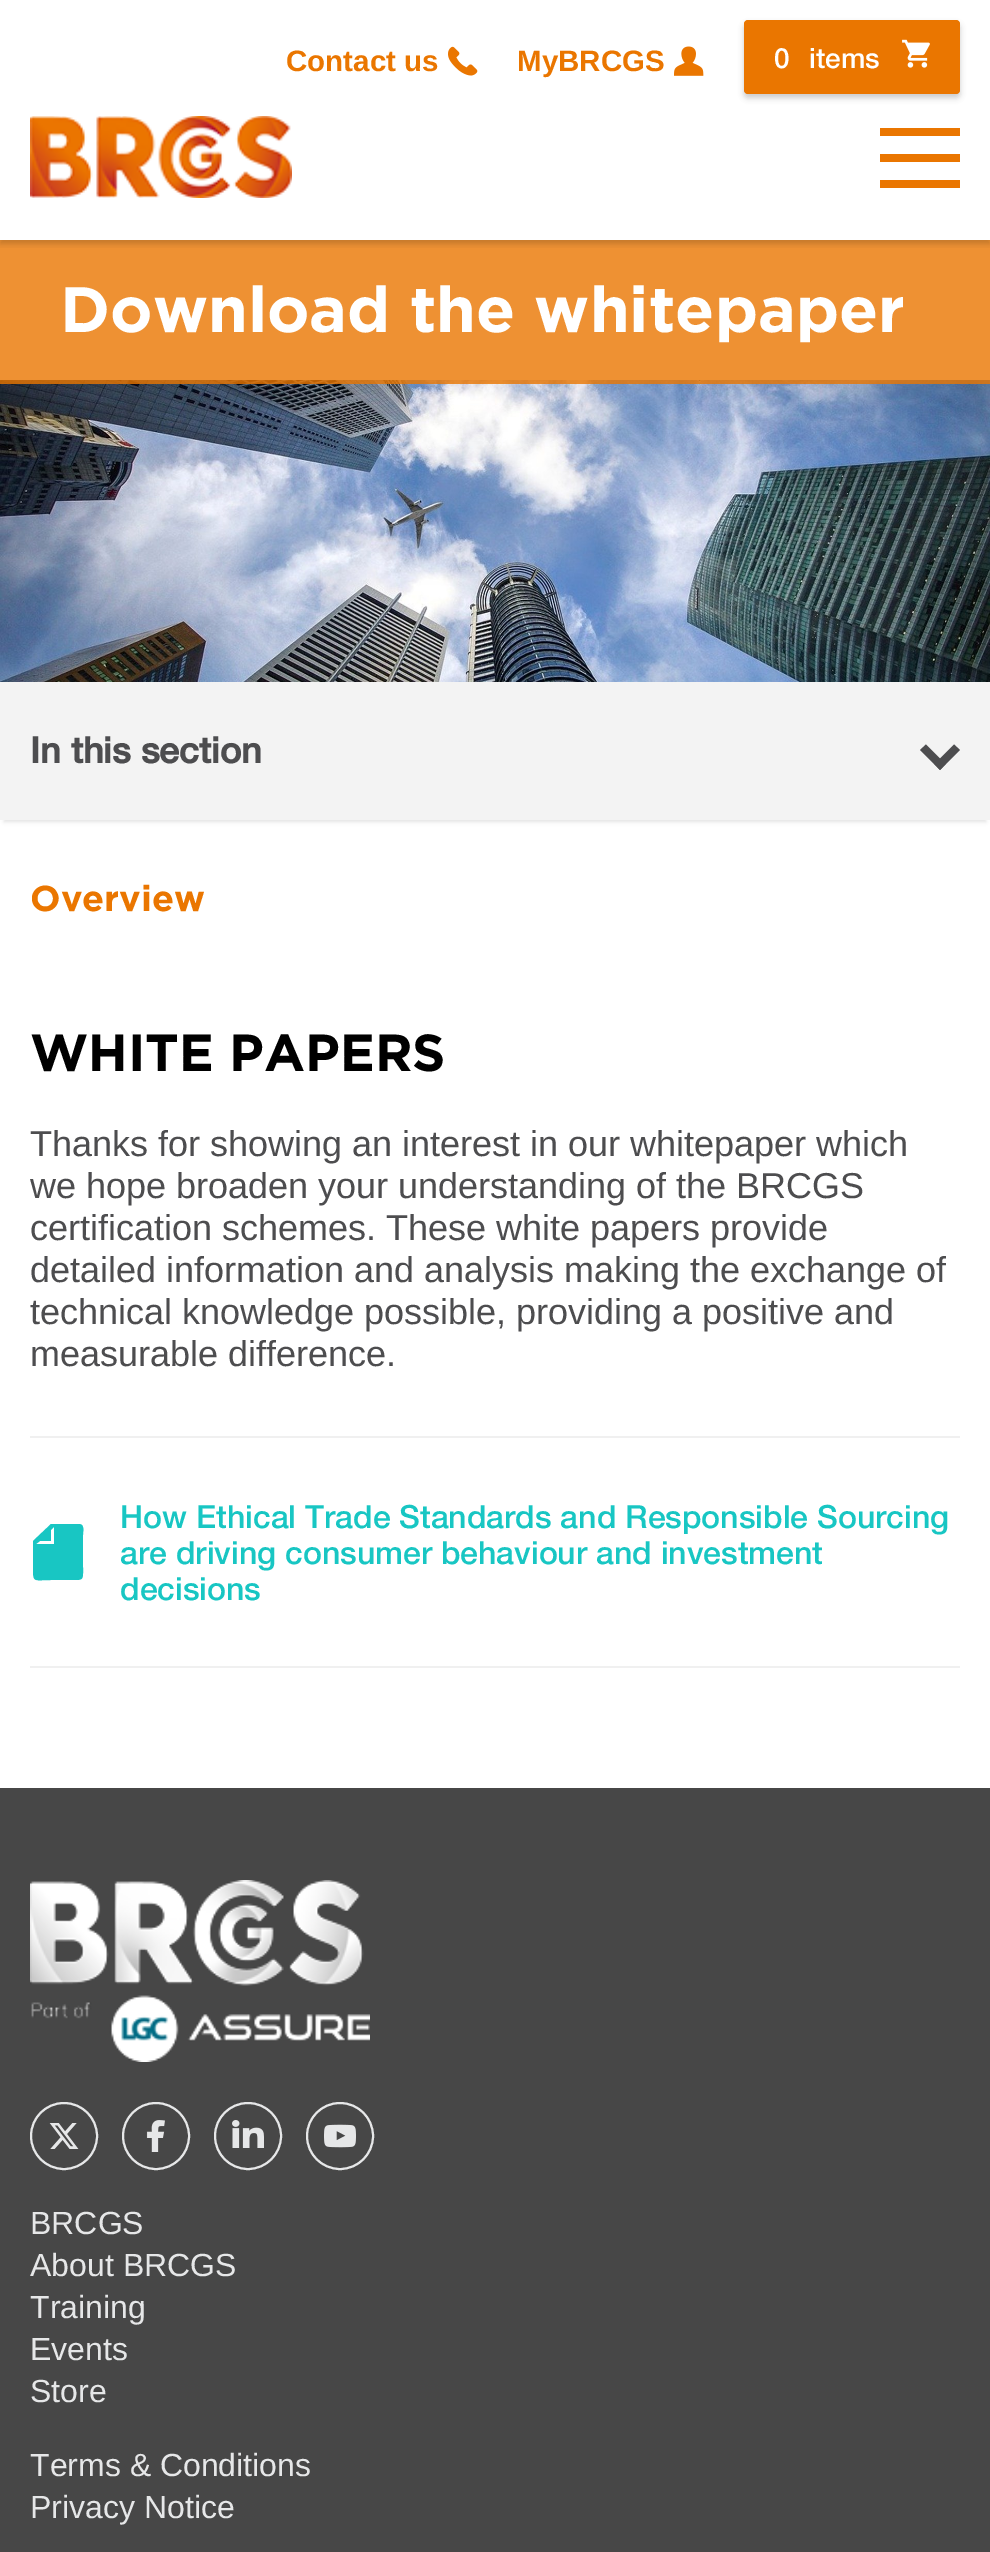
%!PS
<< /PageSize [990 2552] /PageUsesTransparency true >> setpagedevice
/alpha { dup .setfillconstantalpha .setstrokeconstantalpha } def
/roundrect { 5 dict begin { /r /h /w /y /x } { exch def } forall
  x r add y moveto x w add y 2 copy h add r arct x w add y h add x 1 index r arct
  x y h add x y r arct x y 2 copy exch w add exch r arct closepath end } def
/shadow { 12 dict begin { /a /b /q /h /w /y /x } { exch def } forall gsave /was 0 def
  9 -2 -9 { dup b mul 4 div /e exch def 1 sub .425 mul 2.718 exch exp 1 add a .99 .min exch div /now exch def
    1 1 now sub 1 was sub div sub alpha /was now def
    w h .min e 2 mul add 0 gt { x e sub y e sub w e 2 mul add h e 2 mul add
      q e add b .6 mul add w h .min 2 div e add .min 0 .max roundrect fill } if } for grestore end } def
/picture { 5 dict begin { /h /w /y /x /name } { exch def } forall
  gsave x y translate w h scale
  w h 8 [w 0 0 h 0 0] name (r) file false 3 colorimage grestore end } def
0 .pushpdf14devicefilter
0 2552 translate 1 -1 scale
4 setmiterlimit
1 setgray
0 0 990 2552 rectfill
(img5.rgb) 0 380 990 302 picture
0.8 alpha
0.918 0.463 0 setrgbcolor
0 240 990 144 rectfill
gsave
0 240 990 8 rectclip
1 alpha
0 setgray
0 4 990 240 0 3 0.17 shadow
grestore
/LiberationSans-Bold [29.5 0 0 -29.5 0 0] selectfont
1 alpha
286 71 moveto (Contact us) show
(img1.rgb) 448 46 30 30 picture
517 71 moveto (MyBRCGS) show
(img2.rgb) 674 46 30 30 picture
0 setgray
744 24 216 74 4 3 0.2 shadow
0.918 0.463 0 setrgbcolor
744 20 216 74 4 roundrect fill
/HelveticaNeue-Medium [28 0 0 -28 0 0] selectfont
1 setgray
774 68 moveto (0) show
809 68 moveto (items) show
(img3.rgb) 902 39 28 29 picture
0.918 0.463 0 setrgbcolor
880 128 80 8 rectfill
880 154 80 8 rectfill
880 180 80 8 rectfill
(img4.rgb) 30 116 262 82 picture
/Gotham-Bold [64 0 0 -64 0 0] selectfont
1 setgray
60 332 moveto (Download the whitepaper) show
0 setgray
4 692 982 130 0 2 0.11 shadow
0.953 setgray
0 682 990 138 rectfill
/HelveticaNeue-Bold [36 0 0 -36 0 0] selectfont
0.302 0.302 0.31 setrgbcolor
30 763 moveto (In this section) show
newpath 960 750 moveto 940 770 lineto 934.5 764 lineto 954 744.5 lineto closepath fill
newpath 945.5 764 moveto 940 770 lineto 920 750 lineto 926 744.5 lineto closepath fill
/Gotham-Bold [36 0 0 -36 0 0] selectfont
0.918 0.463 0 setrgbcolor
30 911 moveto (Overview) show
/Gotham-Bold [52 0 0 -52 0 0] selectfont
0 setgray
30 1071 moveto (WHITE PAPERS) show
/LiberationSans-Regular [36 0 0 -36 0 0] selectfont
0.302 0.302 0.31 setrgbcolor
30 1156 moveto (Thanks for showing an interest in our whitepaper which) show
30 1198 moveto (we hope broaden your understanding of the BRCGS) show
30 1240 moveto (certification schemes. These white papers provide) show
30 1282 moveto (detailed information and analysis making the exchange of) show
30 1324 moveto (technical knowledge possible, providing a positive and) show
30 1366 moveto (measurable difference.) show
0.941 setgray
30 1436 930 2 rectfill
30 1666 930 2 rectfill
/HelveticaNeue-Medium [32 0 0 -32 0 0] selectfont
0.094 0.776 0.765 setrgbcolor
120 1528 moveto (How Ethical Trade Standards and Responsible Sourcing) show
newpath 79 1524 moveto 51 1524 lineto 33 1541 lineto 33 1570 lineto 33 1583 35 1580 51 1580 curveto 72 1580 lineto 84 1580 83 1580 83 1567 curveto 83 1535 lineto 83 1532 85 1524 79 1524 curveto closepath 54 1544 moveto 36 1544 lineto 40 1541 lineto 51 1541 lineto 51 1530 lineto 54 1527 lineto closepath fill
120 1564 moveto (are driving consumer behaviour and investment) show
120 1600 moveto (decisions) show
0.278 setgray
0 1788 990 764 rectfill
(img6.rgb) 30 1880 340 182 picture
0.902 0.906 0.91 setrgbcolor
2 setlinewidth
newpath 64 2136 33 0 360 arc closepath stroke
(img7.rgb) 49 2123 30 26 picture
newpath 156 2136 33 0 360 arc closepath stroke
(img8.rgb) 146 2120 19 32 picture
newpath 248 2136 33 0 360 arc closepath stroke
(img9.rgb) 232 2120 32 28 picture
newpath 340 2136 33 0 360 arc closepath stroke
(img10.rgb) 324 2124 32 24 picture
/LiberationSans-Regular [32 0 0 -32 0 0] selectfont
30 2234 moveto (BRCGS) show
30 2276 moveto (About BRCGS) show
30 2318 moveto (Training) show
30 2360 moveto (Events) show
30 2402 moveto (Store) show
30 2476 moveto (Terms & Conditions) show
30 2518 moveto (Privacy Notice) show
.poppdf14devicefilter showpage
